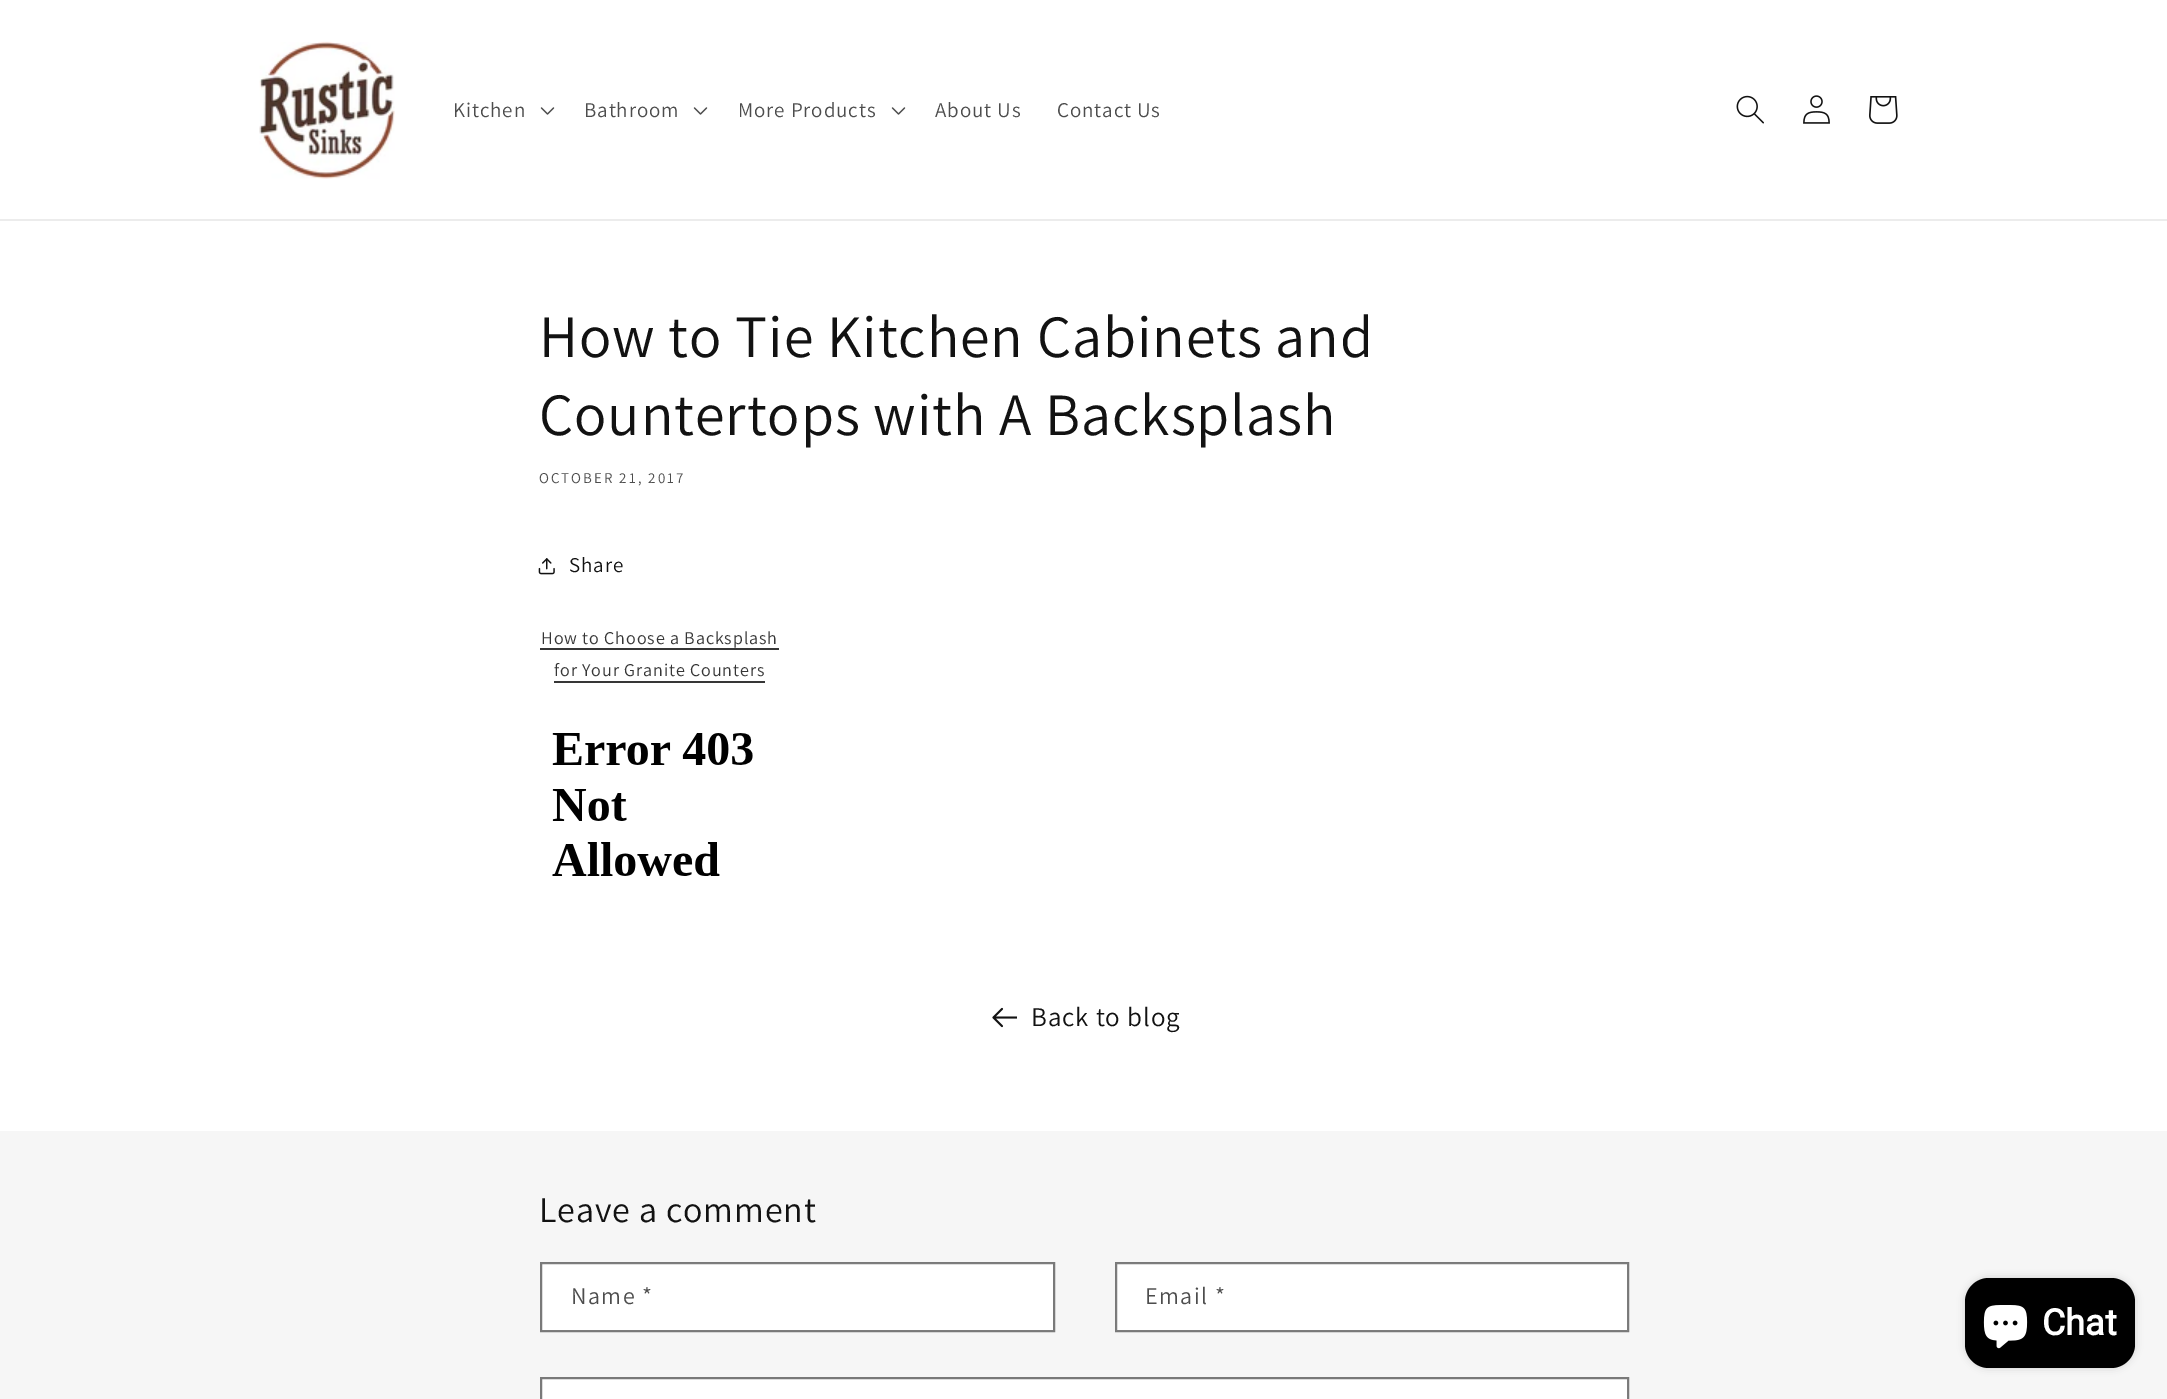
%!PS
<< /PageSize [2167 1399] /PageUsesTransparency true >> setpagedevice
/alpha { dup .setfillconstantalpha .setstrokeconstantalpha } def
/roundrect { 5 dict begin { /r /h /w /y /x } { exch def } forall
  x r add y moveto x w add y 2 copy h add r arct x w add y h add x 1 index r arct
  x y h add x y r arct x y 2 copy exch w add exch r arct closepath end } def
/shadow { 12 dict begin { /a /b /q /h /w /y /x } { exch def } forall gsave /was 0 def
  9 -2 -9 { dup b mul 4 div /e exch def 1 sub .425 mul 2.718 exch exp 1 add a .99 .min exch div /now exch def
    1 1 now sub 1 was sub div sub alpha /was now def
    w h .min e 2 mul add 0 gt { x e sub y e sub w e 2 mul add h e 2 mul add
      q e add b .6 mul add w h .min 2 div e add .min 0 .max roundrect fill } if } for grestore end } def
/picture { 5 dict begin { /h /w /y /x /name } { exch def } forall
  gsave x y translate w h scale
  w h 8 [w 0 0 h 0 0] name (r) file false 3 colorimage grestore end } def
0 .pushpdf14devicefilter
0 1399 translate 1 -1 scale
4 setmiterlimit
1 setgray
0 0 2167 1399 rectfill
0.925 setgray
0 219 2167 2 rectfill
(img1.rgb) 259 41 136 138 picture
/Assistant-Regular [21 0 0 -21 0 0] selectfont
0.302 setgray
453 117 moveto 0.9 0 (Kitchen) ashow
(img2.rgb) 540 107 15 8 picture
584 117 moveto 0.9 0 (Bathroom) ashow
(img2.rgb) 693 107 15 8 picture
738 117 moveto 0.9 0 (More Products) ashow
(img2.rgb) 891 107 15 8 picture
935 117 moveto 0.9 0 (About Us) ashow
1057 117 moveto 0.9 0 (Contact Us) ashow
(img3.rgb) 1736 95 28 29 picture
(img4.rgb) 1803 95 27 29 picture
(img5.rgb) 1869 96 29 28 picture
/Assistant-Regular [60 0 0 -60 0 0] selectfont
0.071 setgray
539 357 moveto 0.9 0 (How to Tie Kitchen Cabinets and) ashow
539 435 moveto 0.9 0 (Countertops with A Backsplash) ashow
/Assistant-Regular [15 0 0 -15 0 0] selectfont
0.302 setgray
539 483 moveto 2 0 (OCTOBER 21, 2017) ashow
(img6.rgb) 538 558 17 17 picture
/Assistant-Regular [21 0 0 -21 0 0] selectfont
0.071 setgray
569 572 moveto 0.9 0 (Share) ashow
/Assistant-Regular [18 0 0 -18 0 0] selectfont
0.212 setgray
541 644 moveto 0.9 0 (How to Choose a Backsplash) ashow
540 648 239 2 rectfill
554 676 moveto 0.9 0 (for Your Granite Counters) ashow
554 681 211 2 rectfill
(img7.rgb) 552 733 201 143 picture
(img8.rgb) 992 1007 25 21 picture
/Assistant-Regular [27 0 0 -27 0 0] selectfont
0.071 setgray
1031 1026 moveto 0.9 0 (Back to blog) ashow
0.965 setgray
0 1131 2167 268 rectfill
/Assistant-Regular [36 0 0 -36 0 0] selectfont
0.071 setgray
539 1222 moveto 0.9 0 (Leave a comment) ashow
1 setgray
542 1263 511 68 rectfill
0.55 alpha
0.071 setgray
2 setlinewidth
541 1263 513 68 rectstroke
/Assistant-Regular [24 0 0 -24 0 0] selectfont
1 alpha
0.302 setgray
571 1304 moveto 1.5 0 (Name *) ashow
1 setgray
1116 1263 512 68 rectfill
0.55 alpha
0.071 setgray
1116 1263 512 68 rectstroke
1 alpha
0.302 setgray
1145 1304 moveto 1.5 0 (Email *) ashow
1 setgray
542 1379 1086 20 rectfill
0.55 alpha
0.071 setgray
541 1378 1087 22 rectstroke
1 alpha
0 setgray
1965 1278 170 90 24 4 0.15 shadow
1965 1278 170 90 24 roundrect fill
(img9.rgb) 1983 1305 45 44 picture
/Roboto-Bold [36 0 0 -36 0 0] selectfont
1 setgray
2042 1335 moveto (Chat) show
.poppdf14devicefilter showpage
